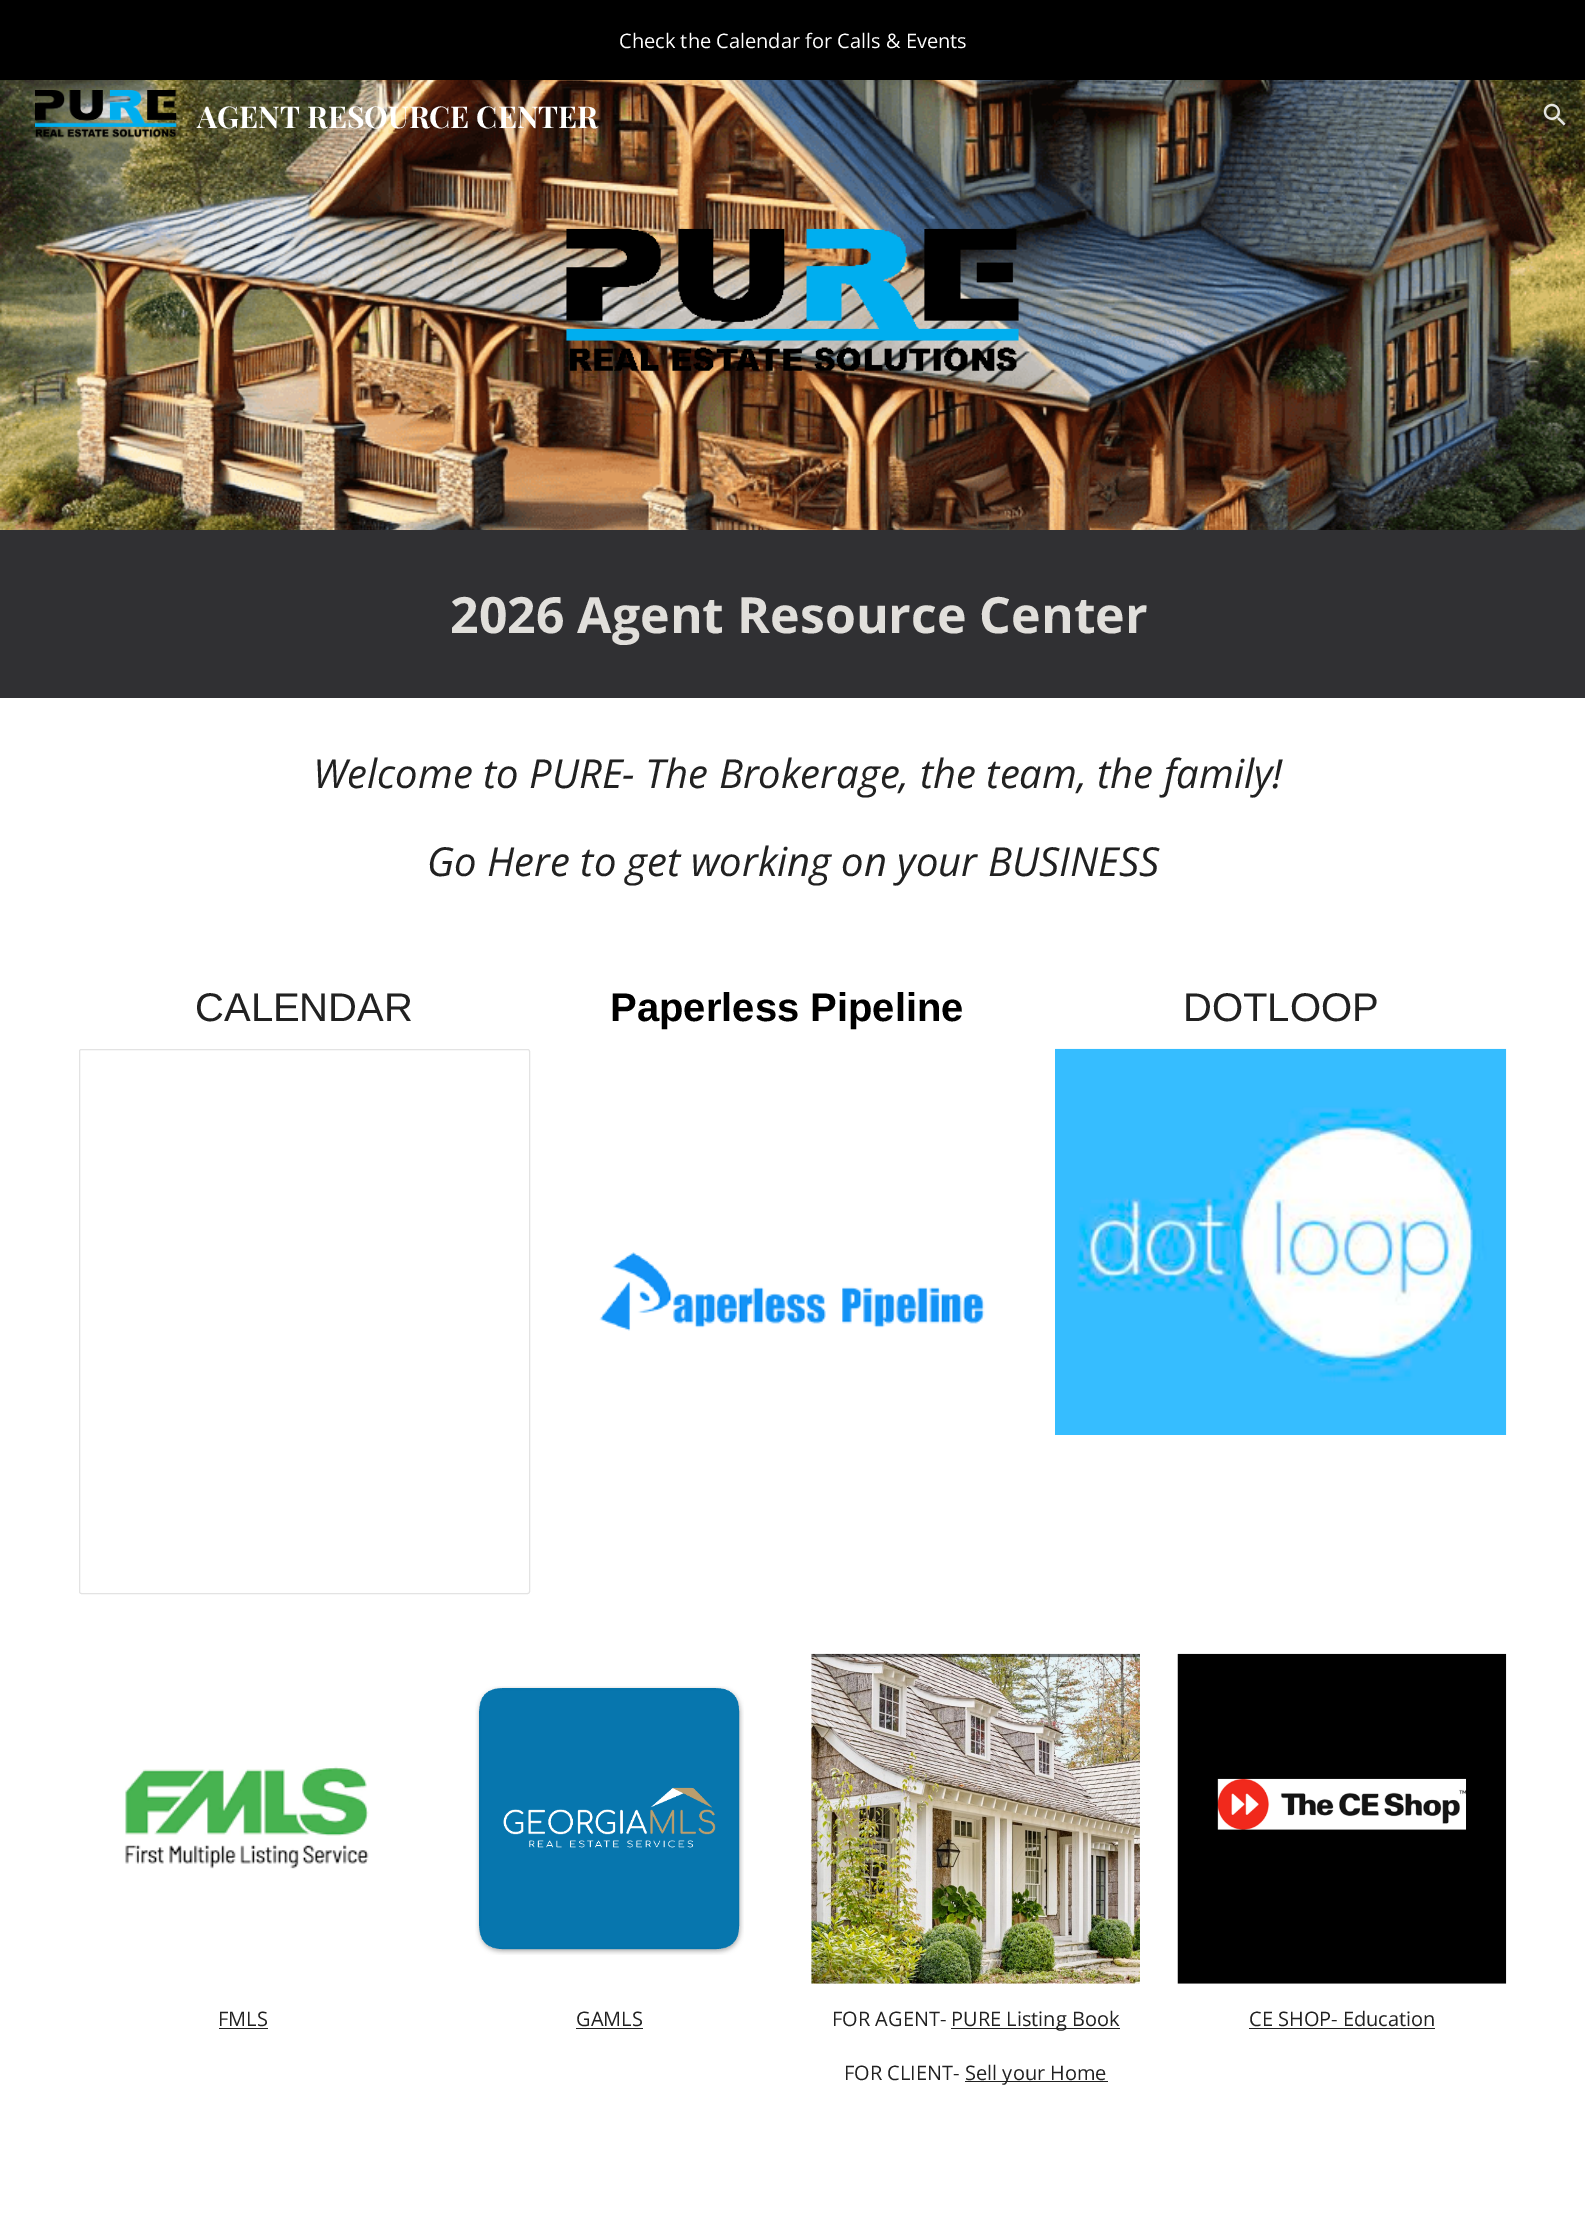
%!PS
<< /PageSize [1585 2240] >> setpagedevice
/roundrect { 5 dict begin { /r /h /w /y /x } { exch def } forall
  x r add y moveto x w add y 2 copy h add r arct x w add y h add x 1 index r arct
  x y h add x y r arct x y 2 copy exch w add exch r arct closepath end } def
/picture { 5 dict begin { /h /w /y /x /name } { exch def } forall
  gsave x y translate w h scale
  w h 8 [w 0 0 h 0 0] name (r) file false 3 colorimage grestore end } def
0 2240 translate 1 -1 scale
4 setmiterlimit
1 setgray
0 0 1585 2240 rectfill
0 setgray
0 0 1585 80 rectfill
/OpenSans-Regular [20 0 0 -20 0 0] selectfont
1 setgray
619 48 moveto (Check the Calendar for Calls & Events) show
(img3.rgb) 0 80 1585 450 picture
(img1.rgb) 35 90 142 48 picture
/PlayfairDisplay-Bold [30 0 0 -30 0 0] selectfont
197 128 moveto (AGENT RESOURCE CENTER) show
(img2.rgb) 1543 103 23 23 picture
(img4.rgb) 566 228 453 143 picture
0.188 0.188 0.2 setrgbcolor
0 530 1585 168 rectfill
/OpenSans-Bold [50 0 0 -50 0 0] selectfont
0.882 0.875 0.859 setrgbcolor
450 633 moveto (2026 Agent Resource Center) show
/OpenSans-Italic [40 0 0 -40 0 0] selectfont
0.129 setgray
313 788 moveto (Welcome to PURE- The Brokerage, the team, the family!) show
427 876 moveto (Go Here to get working on your BUSINESS) show
/LiberationSans-Regular [40 0 0 -40 0 0] selectfont
195 1021 moveto (CALENDAR) show
0.89 setgray
79.5 1049.5 450 544 2 roundrect stroke
/LiberationSans-Bold [40 0 0 -40 0 0] selectfont
0 setgray
610 1021 moveto (Paperless Pipeline) show
(img5.rgb) 599 1252 386 79 picture
/LiberationSans-Regular [40 0 0 -40 0 0] selectfont
0.129 setgray
1183 1021 moveto (DOTLOOP) show
(img6.rgb) 1055 1048 452 387 picture
(img7.rgb) 125 1766 244 103 picture
/OpenSans-Regular [20 0 0 -20 0 0] selectfont
218 2026 moveto (FMLS) show
219 2028 49 1 rectfill
(img8.rgb) 475 1686 269 269 picture
576 2026 moveto (GAMLS) show
576 2028 67 1 rectfill
(img9.rgb) 811 1653 329 331 picture
832 2026 moveto (FOR AGENT-) show
951 2028 169 1 rectfill
951 2026 moveto (PURE Listing Book) show
844 2080 moveto (FOR CLIENT-) show
965 2081 143 1 rectfill
965 2080 moveto (Sell your Home) show
(img10.rgb) 1177 1653 330 331 picture
1249 2026 moveto (CE SHOP- Education) show
1249 2028 186 1 rectfill
showpage
